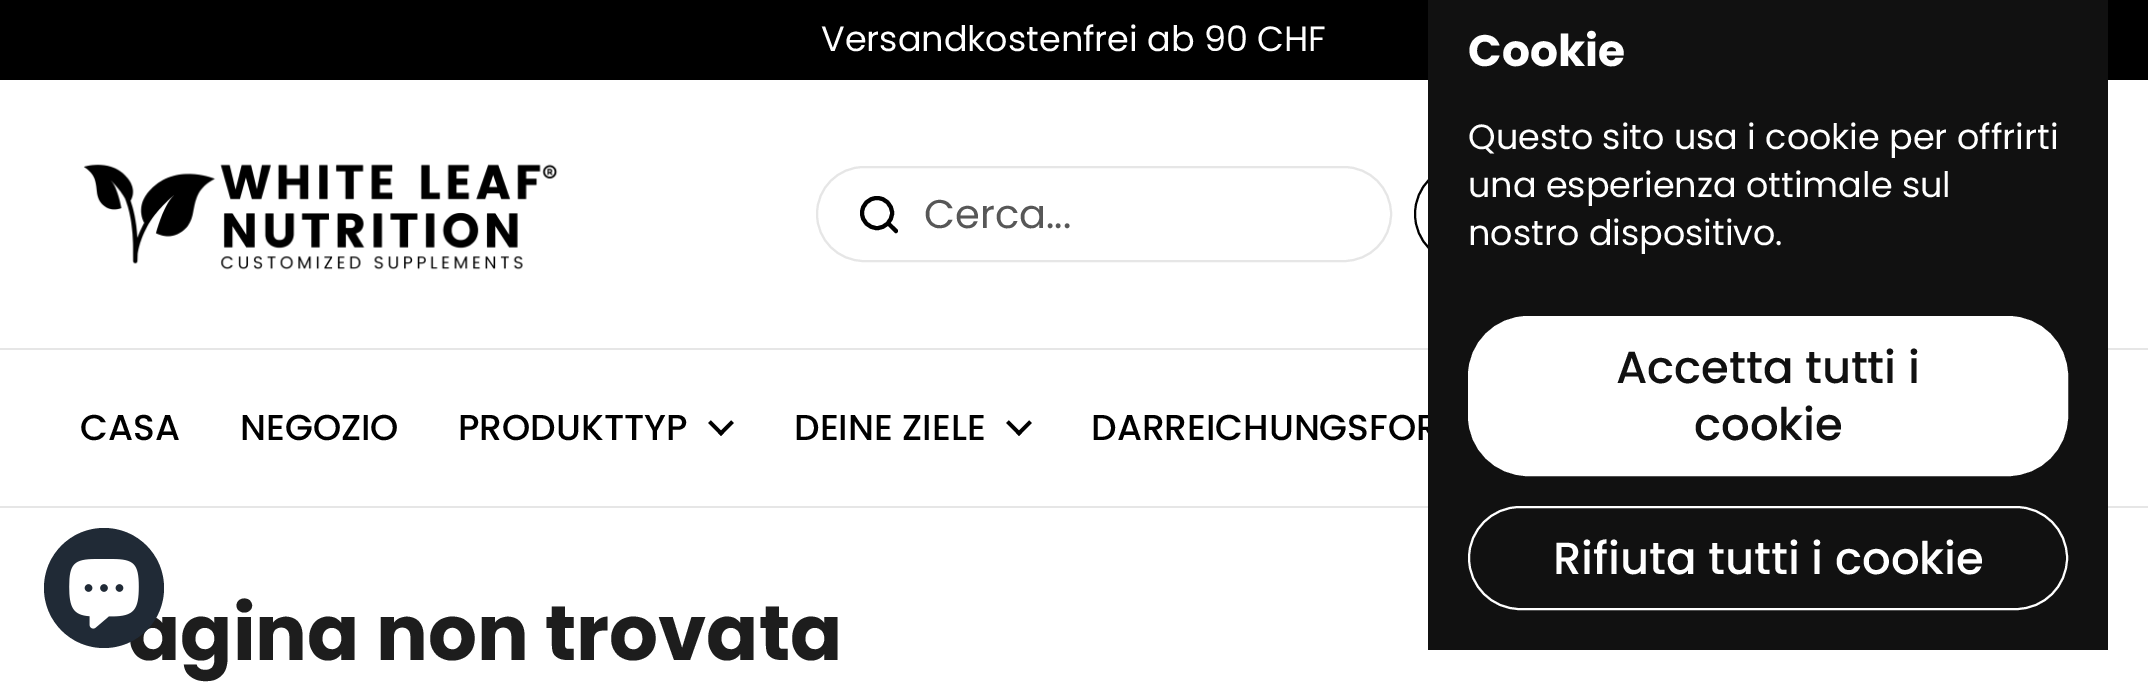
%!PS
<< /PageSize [2148 689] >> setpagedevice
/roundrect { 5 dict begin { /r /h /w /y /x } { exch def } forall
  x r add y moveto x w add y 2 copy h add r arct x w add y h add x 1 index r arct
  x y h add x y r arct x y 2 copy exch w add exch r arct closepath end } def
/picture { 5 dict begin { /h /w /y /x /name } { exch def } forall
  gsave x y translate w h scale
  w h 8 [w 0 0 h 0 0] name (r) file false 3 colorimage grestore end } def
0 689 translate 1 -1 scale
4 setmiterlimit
1 setgray
0 0 2148 689 rectfill
0 setgray
0 0 2148 80 rectfill
/Poppins-Regular [35 0 0 -35 0 0] selectfont
1 setgray
821 51 moveto (Versandkostenfrei ab 90 CHF) show
0.902 setgray
0 348 2148 2 rectfill
0 setgray
2 setlinewidth
1415 165 298 98 49 roundrect stroke
0.902 setgray
0 506 2148 2 rectfill
/Poppins-Medium [36 0 0 -36 0 0] selectfont
0 setgray
1091 440 moveto (DARREICHUNGSFOR) show
0.067 setgray
1428 0 680 650 rectfill
/Poppins-Bold [44 0 0 -44 0 0] selectfont
1 setgray
1468 66 moveto (Cookie) show
/Poppins-Regular [35 0 0 -35 0 0] selectfont
1468 149 moveto (Questo sito usa i cookie per offrirti) show
1468 197 moveto (una esperienza ottimale sul) show
1468 245 moveto (nostro dispositivo.) show
1469 317 598 158 59 roundrect gsave fill grestore
stroke
/Poppins-Medium [45 0 0 -45 0 0] selectfont
0.067 setgray
1616 383 moveto (Accetta tutti i) show
1694 440 moveto (cookie) show
1 setgray
1469 507 598 102 51 roundrect stroke
1553 574 moveto (Rifiuta tutti i cookie) show
(img1.rgb) 83 164 475 106 picture
0.902 setgray
817 167 574 94 47 roundrect stroke
0 setgray
4 setlinewidth
newpath 877 213 15 0 360 arc closepath stroke
newpath 890 222.5 moveto 889 221 lineto 886 224 lineto 887.5 225.5 lineto closepath 894.5 232.5 moveto 896.5 234.5 899 231.5 897.5 229.5 curveto closepath 887.5 225.5 moveto 894.5 232.5 lineto 897.5 229.5 lineto 890 222.5 lineto closepath fill
/Poppins-Regular [40 0 0 -40 0 0] selectfont
0.341 setgray
924 228 moveto (Cerca...) show
/Poppins-Medium [36 0 0 -36 0 0] selectfont
0 setgray
80 440 moveto (CASA) show
240 440 moveto (NEGOZIO) show
458 440 moveto (PRODUKTTYP) show
(img2.rgb) 708 420 26 16 picture
794 440 moveto (DEINE ZIELE) show
(img2.rgb) 1006 420 26 16 picture
/Poppins-Bold [77 0 0 -77 0 0] selectfont
0.114 setgray
128 660 moveto (agina non trovata) show
0.125 0.165 0.212 setrgbcolor
newpath 104 588 60 0 360 arc closepath fill
(img3.rgb) 69 559 70 70 picture
showpage
